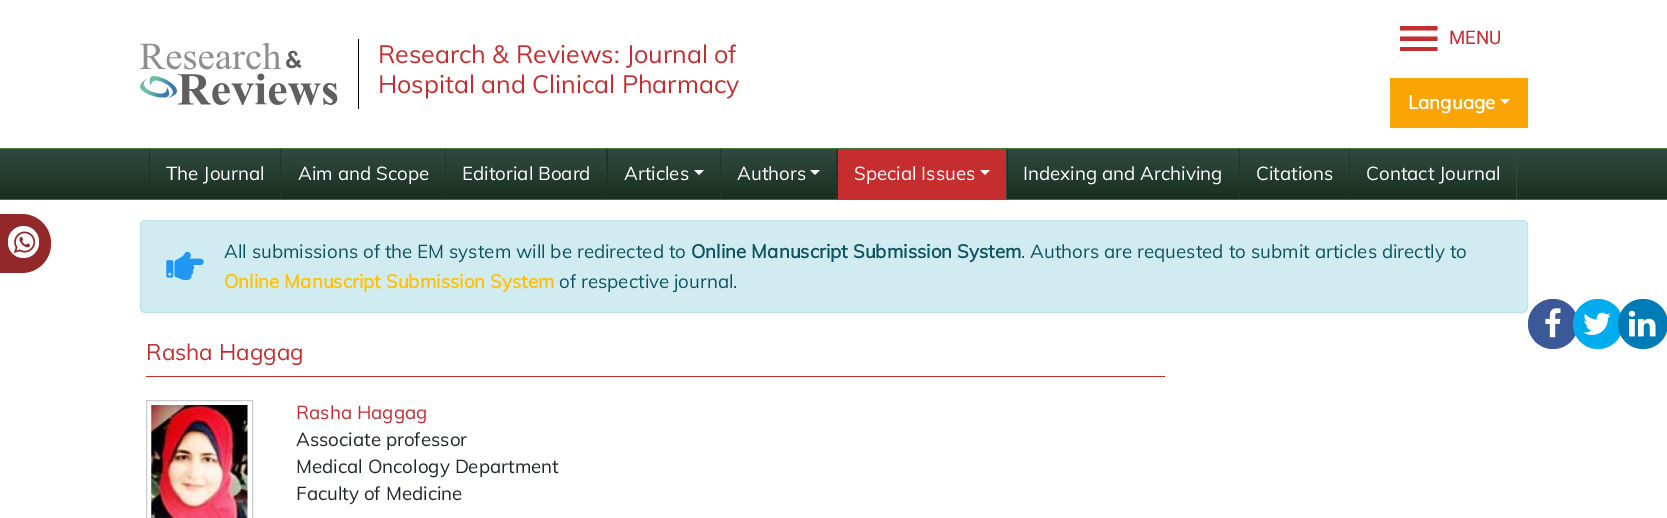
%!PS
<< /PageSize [1667 518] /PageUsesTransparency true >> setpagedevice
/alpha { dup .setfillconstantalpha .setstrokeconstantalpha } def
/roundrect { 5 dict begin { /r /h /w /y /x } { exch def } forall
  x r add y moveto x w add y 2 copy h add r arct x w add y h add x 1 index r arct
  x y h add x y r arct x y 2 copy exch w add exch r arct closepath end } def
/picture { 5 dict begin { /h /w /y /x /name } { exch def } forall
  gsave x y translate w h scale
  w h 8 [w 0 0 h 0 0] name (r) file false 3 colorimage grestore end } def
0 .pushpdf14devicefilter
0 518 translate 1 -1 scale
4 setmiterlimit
1 setgray
0 0 1667 518 rectfill
(img1.rgb) 140 43 198 62 picture
0 setgray
358 39 1 70 rectfill
/Muli-Regular [25 0 0 -25 0 0] selectfont
0.773 0.176 0.184 setrgbcolor
378 63 moveto (Research & Reviews: Journal of) show
378 93 moveto (Hospital and Clinical Pharmacy) show
/Roboto-Regular [18.75 0 0 -18.75 0 0] selectfont
1449 44 moveto (MENU) show
newpath 1400 51 moveto 1437.5 51 lineto 1437.5 47 lineto 1400 47 lineto closepath 1400 41 moveto 1437.5 41 lineto 1437.5 36.5 lineto 1400 36.5 lineto closepath 1400 26 moveto 1400 30.5 lineto 1437.5 30.5 lineto 1437.5 26 lineto closepath fill
0.984 0.643 0.02 setrgbcolor
1390 78 138 50 rectfill
/Muli-Bold [18.75 0 0 -18.75 0 0] selectfont
1 setgray
1408 109 moveto (Language) show
newpath 1500 99 moveto 1510 99 lineto 1505 104 lineto closepath fill
gsave newpath 0 149 moveto 1667 149 lineto 1667 199 lineto 0 199 lineto closepath clip newpath
<< /ShadingType 2 /ColorSpace /DeviceRGB /Coords [834 149 834 199] /Extend [true true] /Function << /FunctionType 2 /Domain [0 1] /C0 [0.188 0.29 0.259] /C1 [0.102 0.184 0.125] /N 1 >> >> shfill grestore
0.275 0.471 0.216 setrgbcolor
0 148 1667 1 rectfill
0.773 0.176 0.184 setrgbcolor
0 199 1667 1 rectfill
0.75 alpha
0.102 0.184 0.125 setrgbcolor
newpath 149 149 moveto 149 199 lineto 280 199 lineto 150 199 lineto 150 149 lineto closepath fill
/Muli-Regular [18.75 0 0 -18.75 0 0] selectfont
1 alpha
1 setgray
166 180 moveto (The Journal) show
0.125 0.212 0.161 setrgbcolor
newpath 280 149 moveto 280 199 lineto 445 199 lineto 281 199 lineto 281 149 lineto closepath fill
1 setgray
298 180 moveto (Aim and Scope) show
0.125 0.212 0.161 setrgbcolor
newpath 445 149 moveto 445 199 lineto 606 199 lineto 446 199 lineto 446 149 lineto closepath fill
0.188 0.29 0.259 setrgbcolor
606 149 1 50 rectfill
1 setgray
462 180 moveto (Editorial Board) show
0.75 alpha
0.102 0.184 0.125 setrgbcolor
newpath 606 149 moveto 606 199 lineto 720 199 lineto 608 199 lineto 608 149 lineto closepath fill
1 alpha
1 setgray
624 180 moveto (Articles) show
newpath 694 170 moveto 704 170 lineto 699 175 lineto closepath fill
0.125 0.212 0.161 setrgbcolor
newpath 720 149 moveto 720 199 lineto 836 199 lineto 721 199 lineto 721 149 lineto closepath fill
0.188 0.29 0.259 setrgbcolor
836 149 1 50 rectfill
1 setgray
737 180 moveto (Authors) show
newpath 810 170 moveto 820 170 lineto 815 175 lineto closepath fill
0.75 alpha
0.102 0.184 0.125 setrgbcolor
newpath 836 149 moveto 836 199 lineto 1006 199 lineto 838 199 lineto 838 149 lineto closepath fill
newpath 1006 149 moveto 1006 199 lineto 1239 199 lineto 1008 199 lineto 1008 149 lineto closepath fill
1 alpha
0.188 0.29 0.259 setrgbcolor
1006 149 1 50 rectfill
0.773 0.176 0.184 setrgbcolor
838 149 168 50 rectfill
1 setgray
854 180 moveto (Special Issues) show
newpath 980 170 moveto 990 170 lineto 985 175 lineto closepath fill
1023 180 moveto (Indexing and Archiving) show
0.125 0.212 0.161 setrgbcolor
newpath 1239 149 moveto 1239 199 lineto 1349 199 lineto 1240 199 lineto 1240 149 lineto closepath fill
1 setgray
1256 180 moveto (Citations) show
0.125 0.212 0.161 setrgbcolor
newpath 1349 149 moveto 1349 199 lineto 1516 199 lineto 1350 199 lineto 1350 149 lineto closepath fill
0.188 0.29 0.259 setrgbcolor
1516 149 1 50 rectfill
1 setgray
1366 180 moveto (Contact Journal) show
0.573 0.157 0.161 setrgbcolor
newpath -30 214 moveto 21.5 214 lineto 38 214 51 227 51 243.5 curveto 51 260 38 273 21.5 273 curveto -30 273 lineto closepath fill
1 setgray
8 226 31 32 15.5 roundrect fill
(img2.rgb) 13 231 23 22 picture
0.82 0.925 0.945 setrgbcolor
140.5 220.5 1387 92 4.5 roundrect gsave fill grestore
0.745 0.898 0.922 setrgbcolor
stroke
(img3.rgb) 166 251 38 29 picture
0.047 0.329 0.376 setrgbcolor
224 258 moveto (All submissions of the EM system will be redirected to) show
/Muli-Bold [18.75 0 0 -18.75 0 0] selectfont
691 258 moveto (Online Manuscript Submission System) show
/Muli-Regular [18.75 0 0 -18.75 0 0] selectfont
1021 258 moveto (. Authors are requested to submit articles directly to) show
/Muli-Bold [18.75 0 0 -18.75 0 0] selectfont
1 0.757 0.027 setrgbcolor
224 288 moveto (Online Manuscript Submission System) show
/Muli-Regular [18.75 0 0 -18.75 0 0] selectfont
0.047 0.329 0.376 setrgbcolor
559 288 moveto (of respective journal.) show
0.231 0.349 0.596 setrgbcolor
newpath 1553 324 25 0 360 arc closepath fill
(img4.rgb) 1545 308 16 30 picture
0 0.675 0.929 setrgbcolor
newpath 1598 324 25 0 360 arc closepath fill
(img5.rgb) 1583 312 28 23 picture
0 0.482 0.714 setrgbcolor
newpath 1643 324 25 0 360 arc closepath fill
(img6.rgb) 1628 310 28 27 picture
0.773 0.176 0.184 setrgbcolor
146 376 1019 1 rectfill
/Muli-Regular [22.5 0 0 -22.5 0 0] selectfont
146 360 moveto (Rasha Haggag) show
0.8 setgray
146.5 400.5 106 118 rectstroke
(img7.rgb) 151 405 97 113 picture
/Muli-Regular [18.75 0 0 -18.75 0 0] selectfont
0.773 0.176 0.184 setrgbcolor
296 419 moveto (Rasha Haggag) show
0.129 0.145 0.161 setrgbcolor
296 446 moveto (Associate professor) show
296 473 moveto (Medical Oncology Department) show
296 500 moveto (Faculty of Medicine) show
.poppdf14devicefilter showpage
